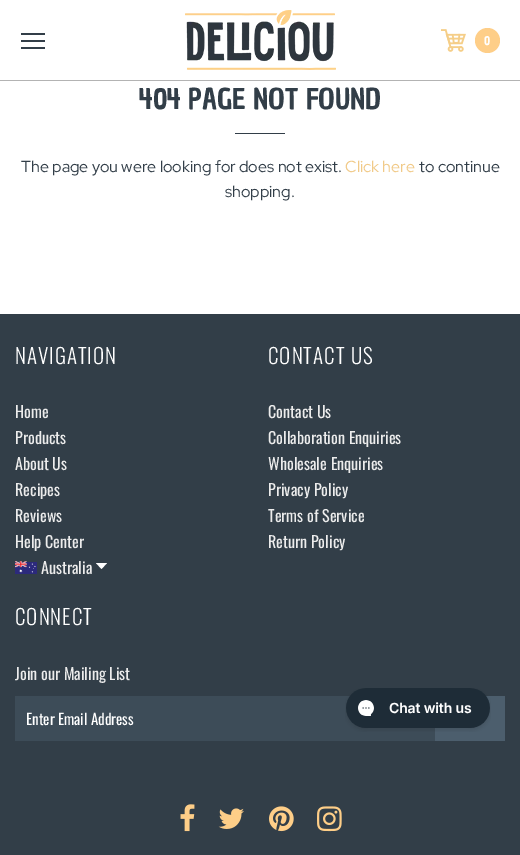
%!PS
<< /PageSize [520 855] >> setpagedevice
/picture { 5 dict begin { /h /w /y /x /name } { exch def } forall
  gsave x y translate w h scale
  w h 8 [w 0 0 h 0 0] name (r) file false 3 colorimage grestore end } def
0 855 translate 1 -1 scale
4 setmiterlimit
1 setgray
0 0 520 855 rectfill
0.702 setgray
0 80 520 1 rectfill
0.196 0.243 0.282 setrgbcolor
21 33 24 2 rectfill
21 40 24 2 rectfill
21 47 24 2 rectfill
(img1.rgb) 185 10 151 60 picture
(img2.rgb) 441 29 25 23 picture
0.996 0.808 0.533 setrgbcolor
newpath 487.5 40.5 12.5 0 360 arc closepath fill
/ChauPhilomeneOne-Regular [12 0 0 -12 0 0] selectfont
1 setgray
484 45 moveto (0) show
/ChauPhilomeneOne-Regular [28 0 0 -28 0 0] selectfont
0.196 0.243 0.282 setrgbcolor
139 109 moveto (404 PAGE NOT FOUND) show
235 133 50 1 rectfill
/RedHatDisplay-Regular [16 0 0 -16 0 0] selectfont
21 172 moveto (The page you were looking for does not exist.) show
0.945 0.792 0.533 setrgbcolor
345 172 moveto (Click here) show
0.196 0.243 0.282 setrgbcolor
419 172 moveto (to continue) show
225 197 moveto (shopping.) show
0 314 520 541 rectfill
/Oswald-Light [21 0 0 -21 0 0] selectfont
1 setgray
15 364 moveto 1 0 (NAVIGATION) ashow
/Oswald-Regular [16 0 0 -16 0 0] selectfont
0.925 setgray
15 418 moveto (Home) show
15 444 moveto (Products) show
15 470 moveto (About Us) show
15 496 moveto (Recipes) show
15 522 moveto (Reviews) show
15 548 moveto (Help Center) show
(img3.rgb) 15 561 22 13 picture
41 574 moveto (Australia) show
1 setgray
newpath 107 563 moveto 101.5 569 lineto 96 563 lineto closepath fill
/Oswald-Light [21 0 0 -21 0 0] selectfont
268 364 moveto 1 0 (CONTACT US) ashow
/Oswald-Regular [16 0 0 -16 0 0] selectfont
0.925 setgray
268 418 moveto (Contact Us) show
268 444 moveto (Collaboration Enquiries) show
268 470 moveto (Wholesale Enquiries) show
268 496 moveto (Privacy Policy) show
268 522 moveto (Terms of Service) show
268 548 moveto (Return Policy) show
/Oswald-Light [21 0 0 -21 0 0] selectfont
1 setgray
15 625 moveto 1 0 (CONNECT) ashow
/Oswald-Regular [16 0 0 -16 0 0] selectfont
0.925 setgray
15 680 moveto (Join our Mailing List) show
0.239 0.298 0.345 setrgbcolor
15 696 420 45 rectfill
/Oswald-Regular [15 0 0 -15 0 0] selectfont
1 setgray
26 725 moveto (Enter Email Address) show
0.298 0.369 0.427 setrgbcolor
435 696 70 45 rectfill
(img4.rgb) 180 804 15 28 picture
(img5.rgb) 218 808 26 21 picture
(img6.rgb) 269 806 25 26 picture
(img7.rgb) 317 806 25 26 picture
(img8.rgb) 345 688 146 44 picture
showpage
